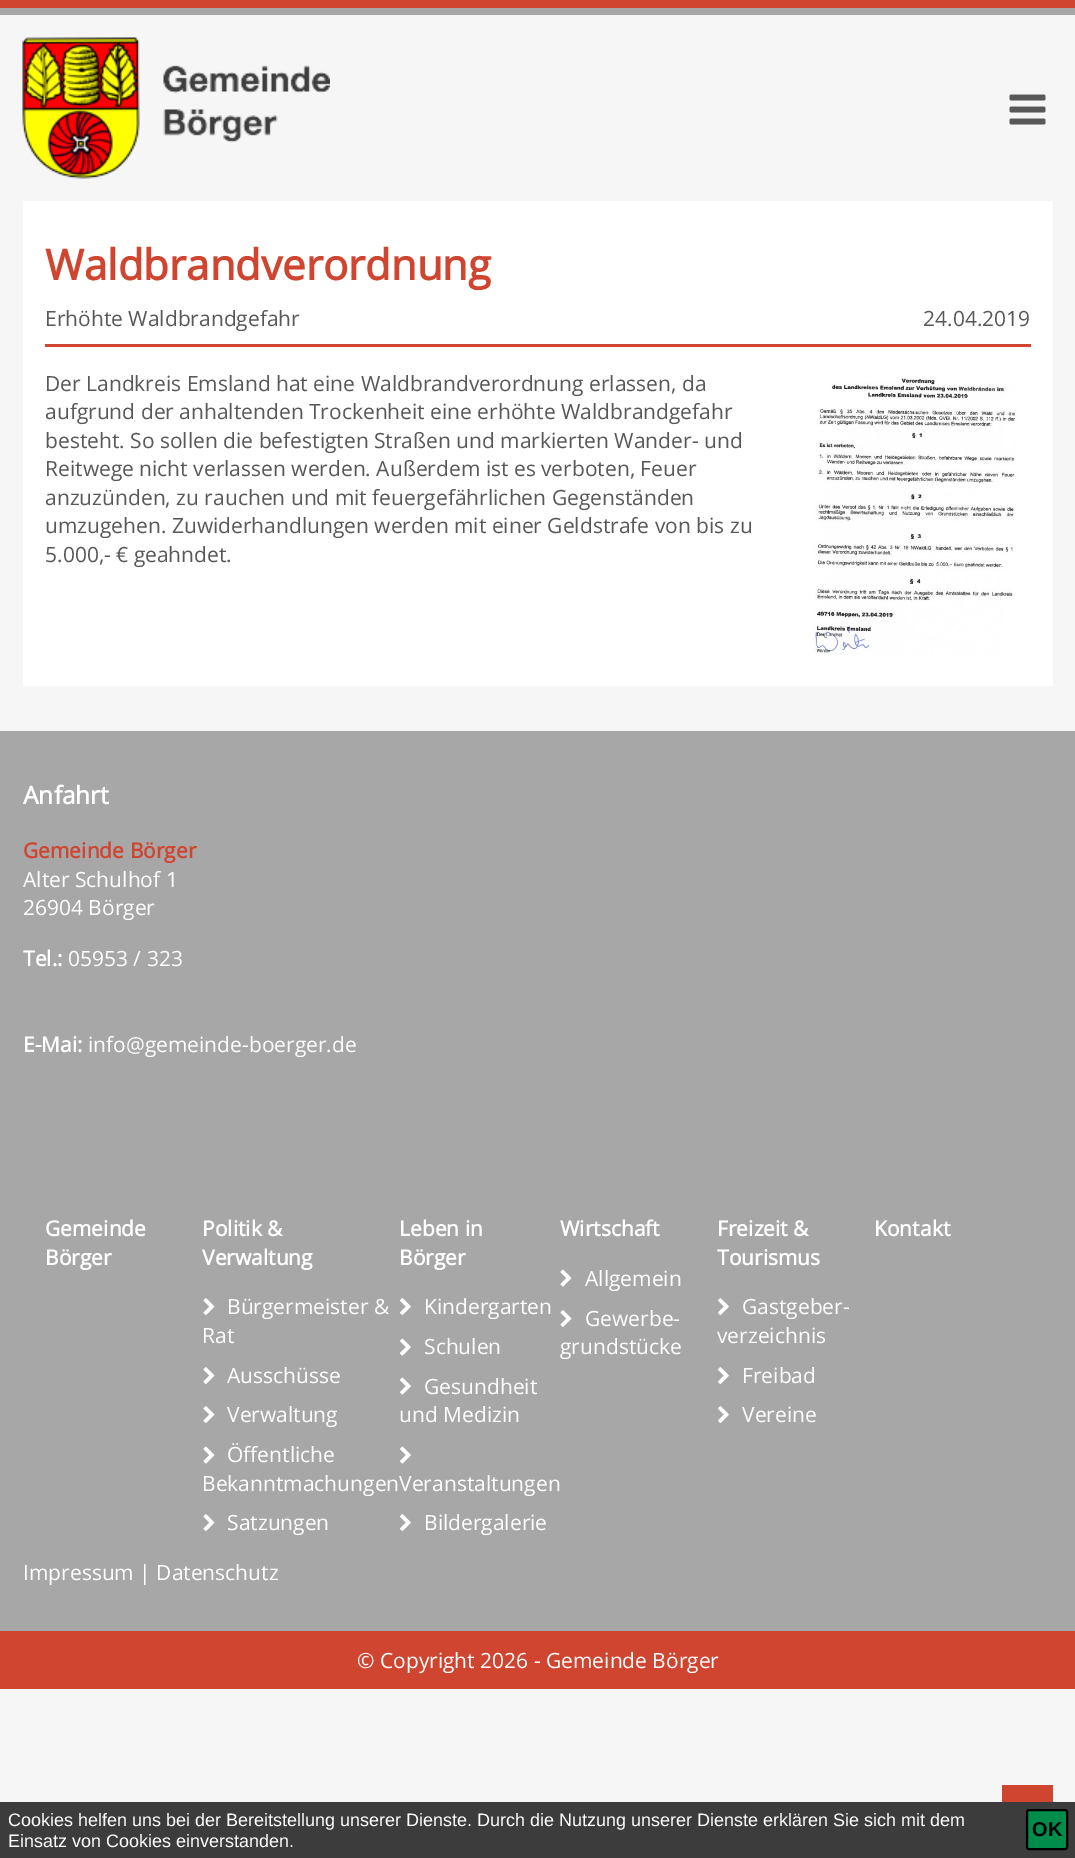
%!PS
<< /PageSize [1075 1858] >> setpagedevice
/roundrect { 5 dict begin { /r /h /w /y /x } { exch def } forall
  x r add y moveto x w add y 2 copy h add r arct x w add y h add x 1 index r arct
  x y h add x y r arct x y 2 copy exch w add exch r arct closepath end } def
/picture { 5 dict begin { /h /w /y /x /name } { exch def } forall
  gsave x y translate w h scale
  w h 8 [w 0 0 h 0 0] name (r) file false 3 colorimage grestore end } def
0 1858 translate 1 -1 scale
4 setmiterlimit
0.965 setgray
0 0 1075 1858 rectfill
0.816 0.271 0.188 setrgbcolor
0 0 1075 8 rectfill
0.655 setgray
0 8 1075 7 rectfill
(img1.rgb) 22 37 308 142 picture
(img2.rgb) 1009 94 37 31 picture
1 setgray
23 201 1030 485 rectfill
/OpenSans-Bold [42 0 0 -42 0 0] selectfont
0.816 0.271 0.188 setrgbcolor
45 280 moveto (Waldbrandverordnung) show
/OpenSans-Regular [21 0 0 -21 0 0] selectfont
0.345 setgray
45 326 moveto (Erhöhte Waldbrandgefahr) show
923 326 moveto (24.04.2019) show
0.816 0.271 0.188 setrgbcolor
45 344 986 3 rectfill
0.345 setgray
45 391 moveto (Der Landkreis Emsland hat eine Waldbrandverordnung erlassen, da) show
45 419 moveto (aufgrund der anhaltenden Trockenheit eine erhöhte Waldbrandgefahr) show
45 448 moveto (besteht. So sollen die befestigten Straßen und markierten Wander- und) show
45 476 moveto (Reitwege nicht verlassen werden. Außerdem ist es verboten, Feuer) show
45 505 moveto (anzuzünden, zu rauchen und mit feuergefährlichen Gegenständen) show
45 533 moveto (umzugehen. Zuwiderhandlungen werden mit einer Geldstrafe von bis zu) show
45 562 moveto (5.000,- € geahndet.) show
(img3.rgb) 810 378 207 277 picture
0.655 setgray
0 731 1075 900 rectfill
/OpenSans-Bold [24.5 0 0 -24.5 0 0] selectfont
1 setgray
23 804 moveto (Anfahrt) show
/OpenSans-Bold [21 0 0 -21 0 0] selectfont
0.816 0.271 0.188 setrgbcolor
23 858 moveto (Gemeinde Börger) show
/OpenSans-Regular [21 0 0 -21 0 0] selectfont
1 setgray
23 887 moveto (Alter Schulhof 1) show
23 915 moveto (26904 Börger) show
/OpenSans-Bold [21 0 0 -21 0 0] selectfont
23 966 moveto (Tel.:) show
/OpenSans-Regular [21 0 0 -21 0 0] selectfont
68 966 moveto (05953 / 323) show
/OpenSans-Bold [21 0 0 -21 0 0] selectfont
23 1052 moveto (E-Mai:) show
/OpenSans-Regular [21 0 0 -21 0 0] selectfont
88 1052 moveto (info@gemeinde-boerger.de) show
/OpenSans-Bold [21 0 0 -21 0 0] selectfont
45 1236 moveto (Gemeinde) show
45 1265 moveto (Börger) show
202 1236 moveto (Politik &) show
202 1265 moveto (Verwaltung) show
(img4.rgb) 203 1298 12 17 picture
/OpenSans-Regular [21 0 0 -21 0 0] selectfont
227 1314 moveto (Bürgermeister &) show
202 1343 moveto (Rat) show
(img4.rgb) 203 1367 12 17 picture
227 1383 moveto (Ausschüsse) show
(img4.rgb) 203 1406 12 17 picture
227 1422 moveto (Verwaltung) show
(img5.rgb) 203 1446 12 18 picture
227 1462 moveto (Öffentliche) show
202 1491 moveto (BekanntmachungenVeranstaltungen) show
(img4.rgb) 203 1514 12 17 picture
227 1530 moveto (Satzungen) show
/OpenSans-Bold [21 0 0 -21 0 0] selectfont
560 1236 moveto (Wirtschaft) show
(img5.rgb) 560 1269 12 18 picture
/OpenSans-Regular [21 0 0 -21 0 0] selectfont
585 1286 moveto (Allgemein) show
(img4.rgb) 560 1310 12 17 picture
585 1326 moveto (Gewerbe-) show
560 1354 moveto (grundstücke) show
/OpenSans-Bold [21 0 0 -21 0 0] selectfont
399 1236 moveto (Leben in) show
399 1265 moveto (Börger) show
(img6.rgb) 400 1298 11 17 picture
/OpenSans-Regular [21 0 0 -21 0 0] selectfont
424 1314 moveto (Kindergarten) show
(img7.rgb) 400 1338 11 18 picture
424 1354 moveto (Schulen) show
(img7.rgb) 400 1377 11 18 picture
424 1394 moveto (Gesundheit) show
399 1422 moveto (und Medizin) show
(img7.rgb) 400 1446 11 18 picture
(img6.rgb) 400 1514 11 17 picture
424 1530 moveto (Bildergalerie) show
/OpenSans-Bold [21 0 0 -21 0 0] selectfont
717 1236 moveto (Freizeit &) show
717 1265 moveto (Tourismus) show
(img6.rgb) 718 1298 11 17 picture
/OpenSans-Regular [21 0 0 -21 0 0] selectfont
742 1314 moveto (Gastgeber-) show
717 1343 moveto (verzeichnis) show
(img6.rgb) 718 1367 11 17 picture
742 1383 moveto (Freibad) show
(img6.rgb) 718 1406 11 17 picture
742 1422 moveto (Vereine) show
/OpenSans-Bold [21 0 0 -21 0 0] selectfont
874 1236 moveto (Kontakt) show
/OpenSans-Regular [21 0 0 -21 0 0] selectfont
23 1580 moveto (Impressum | Datenschutz) show
0.816 0.271 0.188 setrgbcolor
0 1631 1075 58 rectfill
1 setgray
357 1668 moveto (© Copyright 2026 - Gemeinde Börger) show
0.816 0.271 0.188 setrgbcolor
1002 1785 51 17 rectfill
0.235 setgray
0 1802 1075 56 rectfill
/LiberationSans-Regular [18 0 0 -18 0 0] selectfont
1 setgray
8 1826 moveto (Cookies helfen uns bei der Bereitstellung unserer Dienste. Durch die Nutzung unserer Dienste erklären Sie sich mit dem) show
8 1847 moveto (Einsatz von Cookies einverstanden.) show
0 0.553 0.298 setrgbcolor
1027 1810 40 39 2 roundrect gsave fill grestore
0 setgray
2 setlinewidth
stroke
/LiberationSans-Bold [20 0 0 -20 0 0] selectfont
1032 1836 moveto (OK) show
showpage
